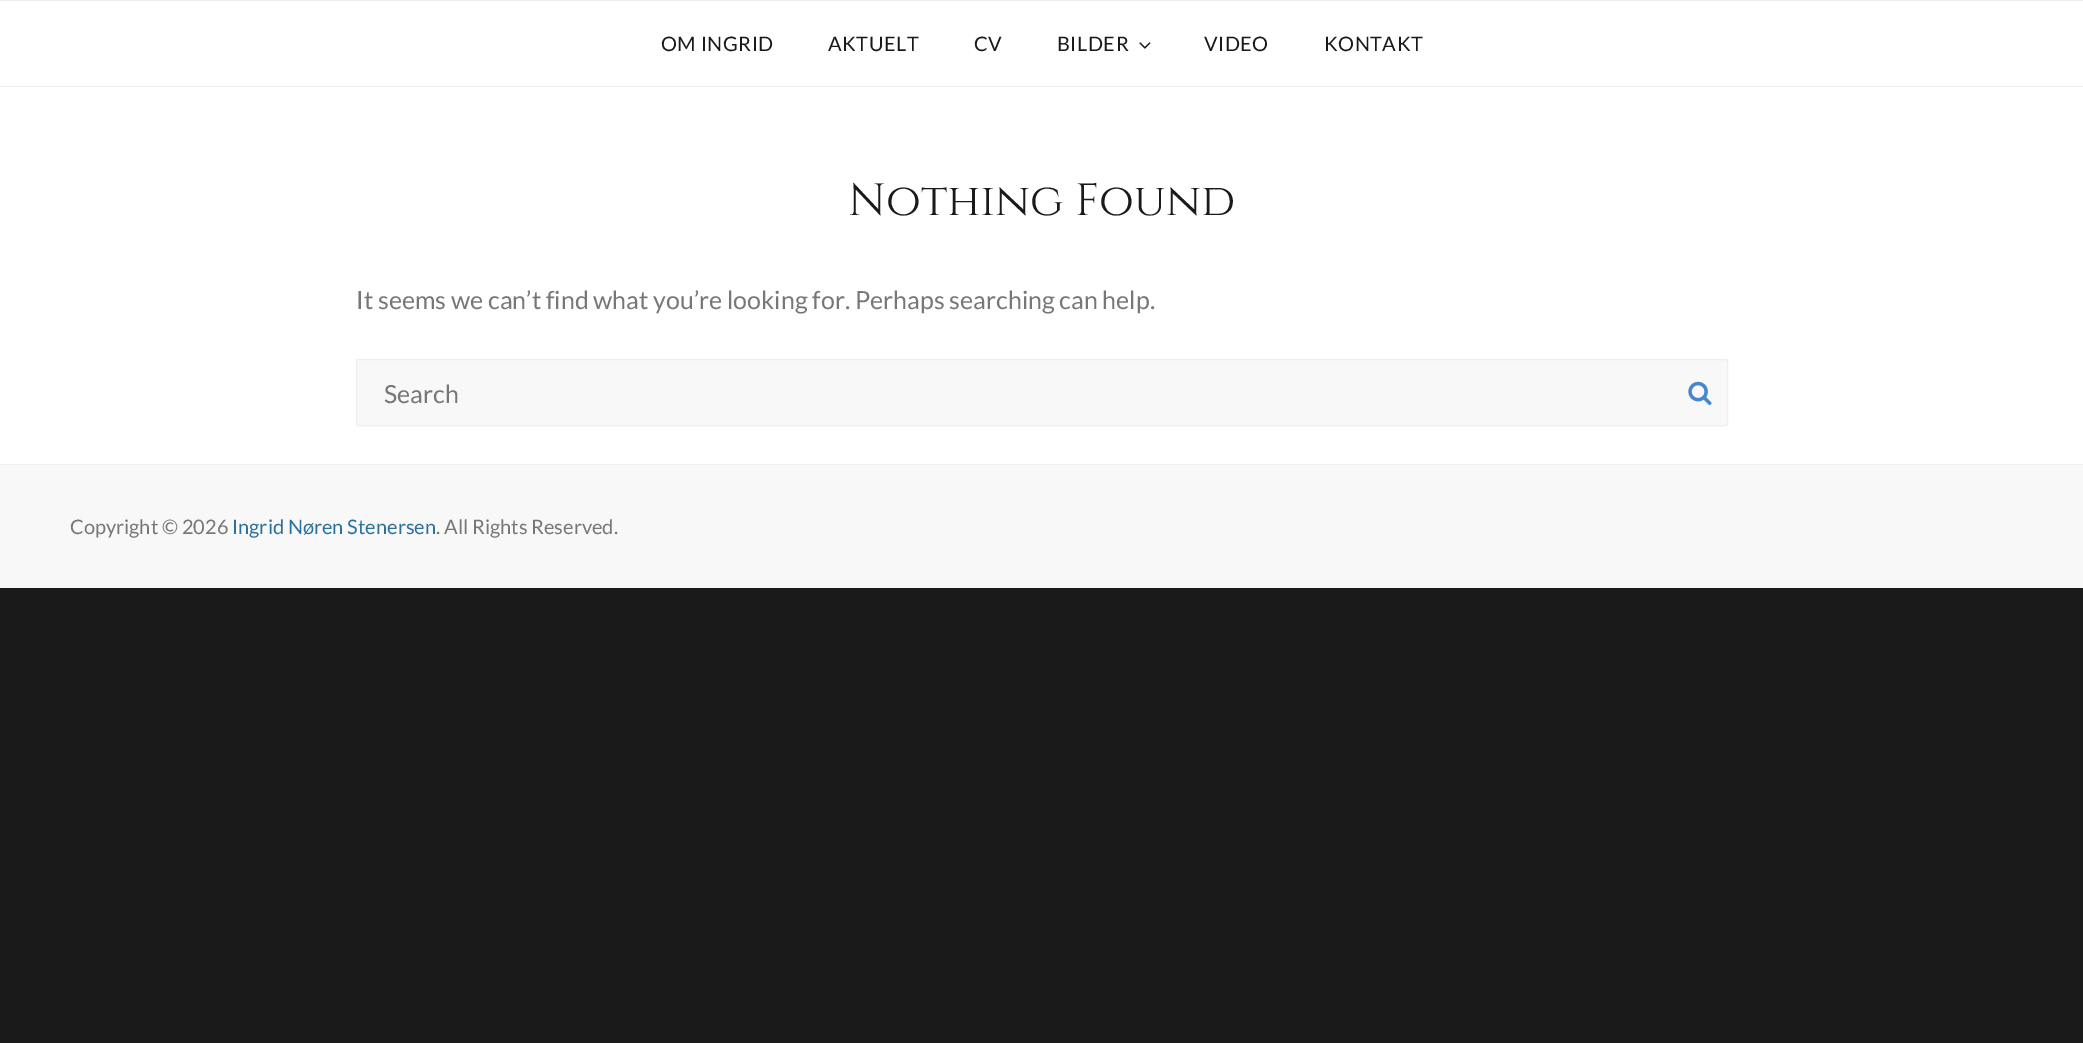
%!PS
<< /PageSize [2083 1043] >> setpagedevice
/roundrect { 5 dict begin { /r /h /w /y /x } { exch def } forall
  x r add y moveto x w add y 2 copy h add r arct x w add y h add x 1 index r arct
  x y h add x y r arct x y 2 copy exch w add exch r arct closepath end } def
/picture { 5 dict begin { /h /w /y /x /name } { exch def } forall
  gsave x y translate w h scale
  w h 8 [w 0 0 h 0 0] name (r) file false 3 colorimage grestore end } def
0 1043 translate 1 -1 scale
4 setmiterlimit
0.102 setgray
0 0 2083 1043 rectfill
1 setgray
0 1 2083 463 rectfill
0.933 setgray
0 0 2083 1 rectfill
0 86 2083 1 rectfill
/Lato-Regular [20 0 0 -20 0 0] selectfont
0.102 setgray
661 51 moveto 0.5 0 (OM INGRID) ashow
828 51 moveto 0.5 0 (AKTUELT) ashow
974 51 moveto 0.5 0 (CV) ashow
1057 51 moveto 0.5 0 (BILDER) ashow
(img1.rgb) 1139 42 12 7 picture
1204 51 moveto 0.5 0 (VIDEO) ashow
1324 51 moveto 0.5 0 (KONTAKT) ashow
/Cinzel-Regular [45 0 0 -45 0 0] selectfont
848 215 moveto (Nothing Found) show
/Lato-Regular [25 0 0 -25 0 0] selectfont
0.467 setgray
356 309 moveto (It seems we can’t find what you’re looking for. Perhaps searching can help.) show
0.973 setgray
356.5 359.5 1371 66 2 roundrect gsave fill grestore
0.933 setgray
stroke
0.467 setgray
384 403 moveto (Search) show
(img2.rgb) 1688 381 24 24 picture
0.973 setgray
0 465 2083 123 rectfill
0.933 setgray
0 464 2083 1 rectfill
/Lato-Regular [20 0 0 -20 0 0] selectfont
0.467 setgray
70 534 moveto (Copyright © 2026) show
0.173 0.439 0.62 setrgbcolor
232 534 moveto (Ingrid Nøren Stenersen) show
0.467 setgray
436 534 moveto (. All Rights Reserved.) show
showpage
